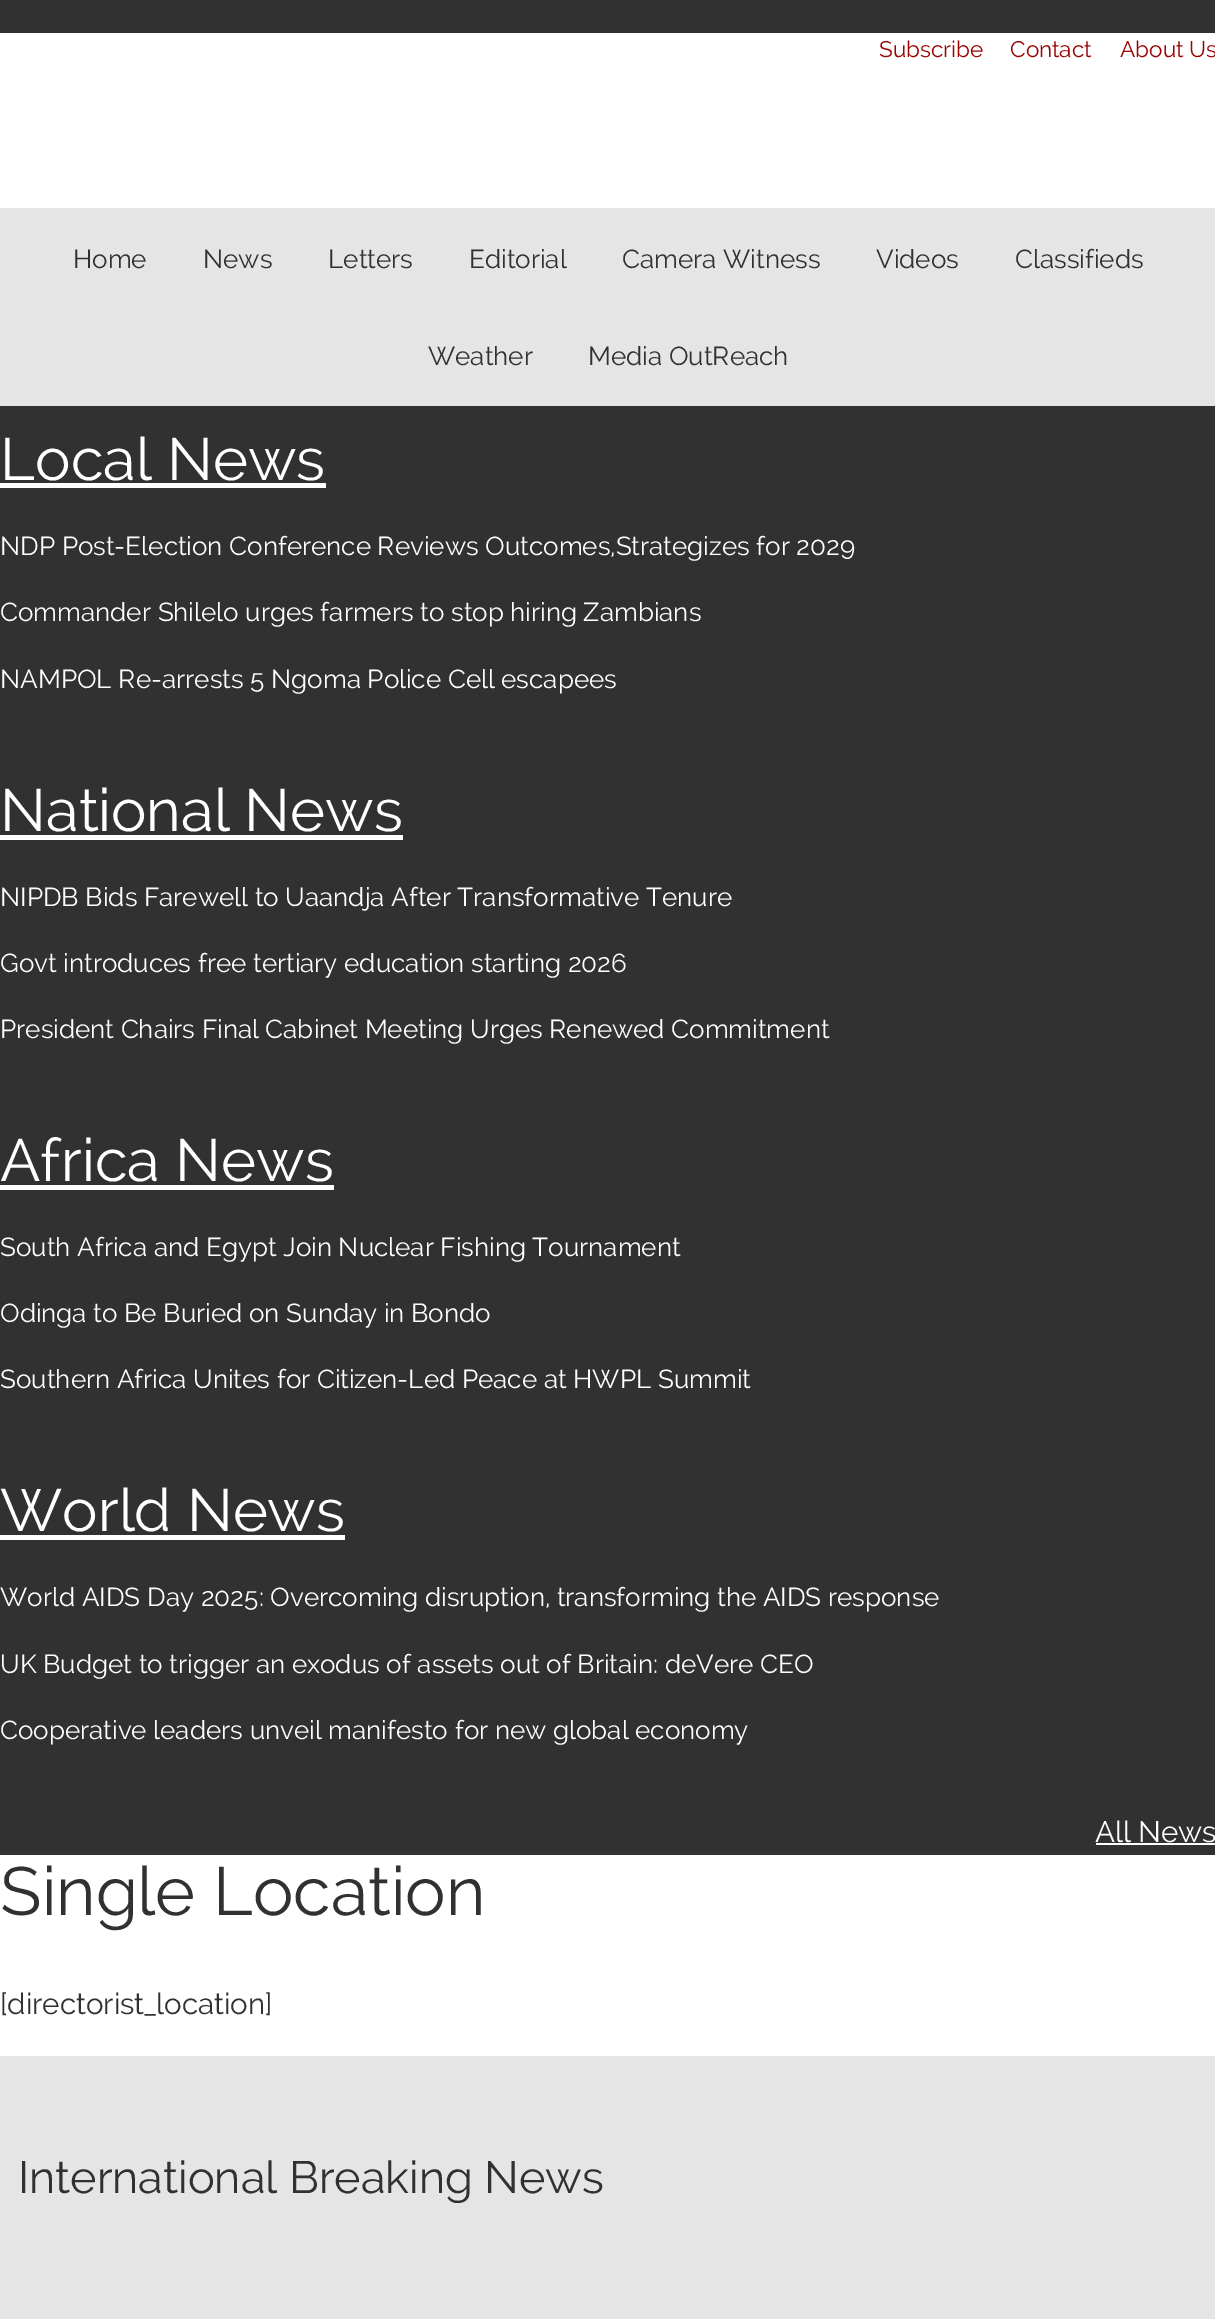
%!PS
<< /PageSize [1215 2319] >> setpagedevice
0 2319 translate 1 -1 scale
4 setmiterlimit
1 setgray
0 0 1215 2319 rectfill
0.192 setgray
0 0 1215 33 rectfill
/Raleway-Regular [22.5 0 0 -22.5 0 0] selectfont
0.604 0.008 0.008 setrgbcolor
879 57 moveto (Subscribe) show
1010 57 moveto (Contact) show
1120 57 moveto (About Us) show
0.898 setgray
0 208 1215 198 rectfill
/Raleway-Regular [26 0 0 -26 0 0] selectfont
0.192 setgray
73 268 moveto (Home) show
203 268 moveto (News) show
328 268 moveto (Letters) show
469 268 moveto (Editorial) show
622 268 moveto (Camera Witness) show
876 268 moveto (Videos) show
1015 268 moveto (Classifieds) show
428 365 moveto (Weather) show
588 365 moveto (Media OutReach) show
0 406 1215 1449 rectfill
/Raleway-Regular [59.5 0 0 -59.5 0 0] selectfont
1 setgray
0 480 moveto (Local News) show
0 483 326 5 rectfill
/Raleway-Regular [26 0 0 -26 0 0] selectfont
0 555 moveto (NDP Post-Election Conference Reviews Outcomes,Strategizes for 2029) show
0 621 moveto (Commander Shilelo urges farmers to stop hiring Zambians) show
0 688 moveto (NAMPOL Re-arrests 5 Ngoma Police Cell escapees) show
/Raleway-Regular [59.5 0 0 -59.5 0 0] selectfont
0 831 moveto (National News) show
0 835 403 5 rectfill
/Raleway-Regular [26 0 0 -26 0 0] selectfont
0 906 moveto (NIPDB Bids Farewell to Uaandja After Transformative Tenure) show
0 972 moveto (Govt introduces free tertiary education starting 2026) show
0 1038 moveto (President Chairs Final Cabinet Meeting Urges Renewed Commitment) show
/Raleway-Regular [59.5 0 0 -59.5 0 0] selectfont
0 1181 moveto (Africa News) show
0 1185 334 5 rectfill
/Raleway-Regular [26 0 0 -26 0 0] selectfont
0 1256 moveto (South Africa and Egypt Join Nuclear Fishing Tournament) show
0 1322 moveto (Odinga to Be Buried on Sunday in Bondo) show
0 1388 moveto (Southern Africa Unites for Citizen-Led Peace at HWPL Summit) show
/Raleway-Regular [59.5 0 0 -59.5 0 0] selectfont
0 1531 moveto (World News) show
0 1535 345 5 rectfill
/Raleway-Regular [26 0 0 -26 0 0] selectfont
0 1606 moveto (World AIDS Day 2025: Overcoming disruption, transforming the AIDS response) show
0 1673 moveto (UK Budget to trigger an exodus of assets out of Britain: deVere CEO) show
0 1739 moveto (Cooperative leaders unveil manifesto for new global economy) show
/Raleway-Regular [29.5 0 0 -29.5 0 0] selectfont
1095 1842 moveto (All News) show
1096 1843 119 2 rectfill
/Raleway-Regular [68 0 0 -68 0 0] selectfont
0.192 setgray
0 1915 moveto (Single Location) show
/Raleway-Regular [29.5 0 0 -29.5 0 0] selectfont
0 2014 moveto ([directorist_location]) show
0.898 setgray
0 2056 1215 263 rectfill
/Raleway-Regular [45 0 0 -45 0 0] selectfont
0.192 setgray
18 2193 moveto (International Breaking News) show
showpage
